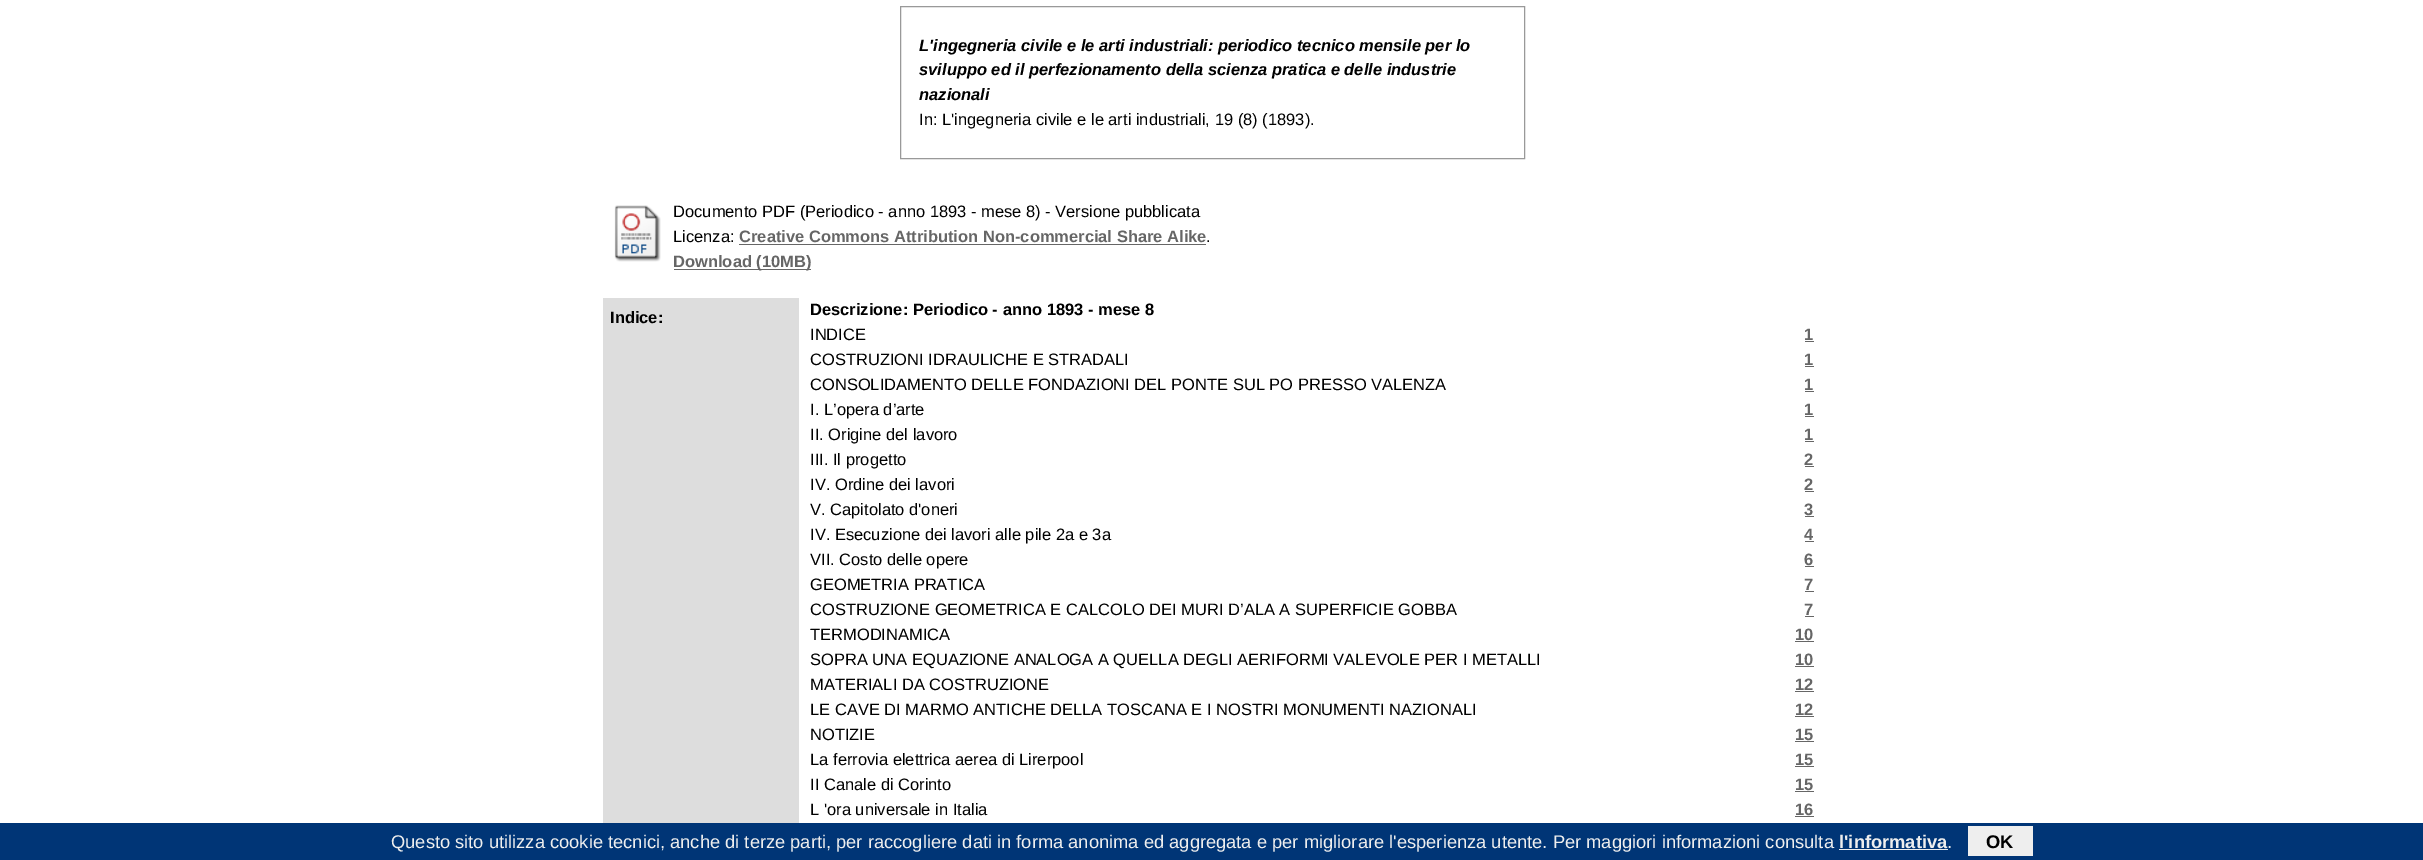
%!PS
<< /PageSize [2423 860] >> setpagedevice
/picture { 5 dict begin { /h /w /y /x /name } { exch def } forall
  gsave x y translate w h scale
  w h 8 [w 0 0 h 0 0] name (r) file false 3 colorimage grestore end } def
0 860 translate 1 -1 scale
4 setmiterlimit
1 setgray
0 0 2423 860 rectfill
0.6 setgray
900.5 6.5 624 152 rectstroke
/LiberationSans-BoldItalic [16.5 0 0 -16.5 0 0] selectfont
0 setgray
919 51 moveto (L'ingegneria civile e le arti industriali: periodico tecnico mensile per lo) show
919 75 moveto (sviluppo ed il perfezionamento della scienza pratica e delle industrie) show
919 100 moveto (nazionali) show
/LiberationSans-Regular [16.5 0 0 -16.5 0 0] selectfont
919 125 moveto (In: L'ingegneria civile e le arti industriali, 19 \(8\) \(1893\).) show
(img1.rgb) 614 205 47 57 picture
673 217 moveto (Documento PDF \(Periodico - anno 1893 - mese 8\)) show
1045 217 moveto (- Versione pubblicata) show
673 242 moveto (Licenza:) show
/LiberationSans-Bold [16.5 0 0 -16.5 0 0] selectfont
0.4 setgray
739 242 moveto (Creative Commons Attribution Non-commercial Share Alike) show
/LiberationSans-Regular [16.5 0 0 -16.5 0 0] selectfont
0 setgray
1206 242 moveto (.) show
0.4 setgray
739 244 467 1 rectfill
674 269 137 1 rectfill
/LiberationSans-Bold [16.5 0 0 -16.5 0 0] selectfont
673 267 moveto (Download \(10MB\)) show
0.867 setgray
603 298 196 525 rectfill
0 setgray
610 323 moveto (Indice:) show
810 315 moveto (Descrizione: Periodico - anno 1893 - mese 8) show
/LiberationSans-Regular [16.5 0 0 -16.5 0 0] selectfont
810 340 moveto (INDICE) show
/LiberationSans-Bold [16.5 0 0 -16.5 0 0] selectfont
0.4 setgray
1804 340 moveto (1) show
1805 341 9 1 rectfill
/LiberationSans-Regular [16.5 0 0 -16.5 0 0] selectfont
0 setgray
810 365 moveto (COSTRUZIONI IDRAULICHE E STRADALI) show
/LiberationSans-Bold [16.5 0 0 -16.5 0 0] selectfont
0.4 setgray
1804 365 moveto (1) show
1805 366 9 1 rectfill
/LiberationSans-Regular [16.5 0 0 -16.5 0 0] selectfont
0 setgray
810 390 moveto (CONSOLIDAMENTO DELLE FONDAZIONI DEL PONTE SUL PO PRESSO VALENZA) show
/LiberationSans-Bold [16.5 0 0 -16.5 0 0] selectfont
0.4 setgray
1804 390 moveto (1) show
1805 391 9 1 rectfill
/LiberationSans-Regular [16.5 0 0 -16.5 0 0] selectfont
0 setgray
810 415 moveto (I. L’opera d’arte) show
/LiberationSans-Bold [16.5 0 0 -16.5 0 0] selectfont
0.4 setgray
1804 415 moveto (1) show
1805 416 9 1 rectfill
/LiberationSans-Regular [16.5 0 0 -16.5 0 0] selectfont
0 setgray
810 440 moveto (II. Origine del lavoro) show
/LiberationSans-Bold [16.5 0 0 -16.5 0 0] selectfont
0.4 setgray
1804 440 moveto (1) show
1805 441 9 1 rectfill
/LiberationSans-Regular [16.5 0 0 -16.5 0 0] selectfont
0 setgray
810 465 moveto (III. Il progetto) show
/LiberationSans-Bold [16.5 0 0 -16.5 0 0] selectfont
0.4 setgray
1804 465 moveto (2) show
1805 466 9 1 rectfill
/LiberationSans-Regular [16.5 0 0 -16.5 0 0] selectfont
0 setgray
810 490 moveto (IV. Ordine dei lavori) show
/LiberationSans-Bold [16.5 0 0 -16.5 0 0] selectfont
0.4 setgray
1804 490 moveto (2) show
1805 491 9 1 rectfill
/LiberationSans-Regular [16.5 0 0 -16.5 0 0] selectfont
0 setgray
810 515 moveto (V. Capitolato d'oneri) show
/LiberationSans-Bold [16.5 0 0 -16.5 0 0] selectfont
0.4 setgray
1804 515 moveto (3) show
1805 516 9 1 rectfill
/LiberationSans-Regular [16.5 0 0 -16.5 0 0] selectfont
0 setgray
810 540 moveto (IV. Esecuzione dei lavori alle pile 2a e 3a) show
/LiberationSans-Bold [16.5 0 0 -16.5 0 0] selectfont
0.4 setgray
1804 540 moveto (4) show
1805 541 9 1 rectfill
/LiberationSans-Regular [16.5 0 0 -16.5 0 0] selectfont
0 setgray
810 565 moveto (VII. Costo delle opere) show
/LiberationSans-Bold [16.5 0 0 -16.5 0 0] selectfont
0.4 setgray
1804 565 moveto (6) show
1805 566 9 1 rectfill
/LiberationSans-Regular [16.5 0 0 -16.5 0 0] selectfont
0 setgray
810 590 moveto (GEOMETRIA PRATICA) show
/LiberationSans-Bold [16.5 0 0 -16.5 0 0] selectfont
0.4 setgray
1804 590 moveto (7) show
1805 591 9 1 rectfill
/LiberationSans-Regular [16.5 0 0 -16.5 0 0] selectfont
0 setgray
810 615 moveto (COSTRUZIONE GEOMETRICA E CALCOLO DEI MURI D’ALA A SUPERFICIE GOBBA) show
/LiberationSans-Bold [16.5 0 0 -16.5 0 0] selectfont
0.4 setgray
1804 615 moveto (7) show
1805 616 9 1 rectfill
/LiberationSans-Regular [16.5 0 0 -16.5 0 0] selectfont
0 setgray
810 640 moveto (TERMODINAMICA) show
/LiberationSans-Bold [16.5 0 0 -16.5 0 0] selectfont
0.4 setgray
1795 640 moveto (10) show
1795 641 19 1 rectfill
/LiberationSans-Regular [16.5 0 0 -16.5 0 0] selectfont
0 setgray
810 665 moveto (SOPRA UNA EQUAZIONE ANALOGA A QUELLA DEGLI AERIFORMI VALEVOLE PER I METALLI) show
/LiberationSans-Bold [16.5 0 0 -16.5 0 0] selectfont
0.4 setgray
1795 665 moveto (10) show
1795 666 19 1 rectfill
/LiberationSans-Regular [16.5 0 0 -16.5 0 0] selectfont
0 setgray
810 690 moveto (MATERIALI DA COSTRUZIONE) show
/LiberationSans-Bold [16.5 0 0 -16.5 0 0] selectfont
0.4 setgray
1795 690 moveto (12) show
1795 691 19 1 rectfill
/LiberationSans-Regular [16.5 0 0 -16.5 0 0] selectfont
0 setgray
810 715 moveto (LE CAVE DI MARMO ANTICHE DELLA TOSCANA E I NOSTRI MONUMENTI NAZIONALI) show
/LiberationSans-Bold [16.5 0 0 -16.5 0 0] selectfont
0.4 setgray
1795 715 moveto (12) show
1795 716 19 1 rectfill
/LiberationSans-Regular [16.5 0 0 -16.5 0 0] selectfont
0 setgray
810 740 moveto (NOTIZIE) show
/LiberationSans-Bold [16.5 0 0 -16.5 0 0] selectfont
0.4 setgray
1795 740 moveto (15) show
1795 741 19 1 rectfill
/LiberationSans-Regular [16.5 0 0 -16.5 0 0] selectfont
0 setgray
810 765 moveto (La ferrovia elettrica aerea di Lirerpool) show
/LiberationSans-Bold [16.5 0 0 -16.5 0 0] selectfont
0.4 setgray
1795 765 moveto (15) show
1795 766 19 1 rectfill
/LiberationSans-Regular [16.5 0 0 -16.5 0 0] selectfont
0 setgray
810 790 moveto (II Canale di Corinto) show
/LiberationSans-Bold [16.5 0 0 -16.5 0 0] selectfont
0.4 setgray
1795 790 moveto (15) show
1795 791 19 1 rectfill
/LiberationSans-Regular [16.5 0 0 -16.5 0 0] selectfont
0 setgray
810 815 moveto (L 'ora universale in Italia) show
/LiberationSans-Bold [16.5 0 0 -16.5 0 0] selectfont
0.4 setgray
1795 815 moveto (16) show
1795 816 19 1 rectfill
0 0.208 0.463 setrgbcolor
0 823 2423 37 rectfill
/LiberationSans-Regular [18.33 0 0 -18.33 0 0] selectfont
0.933 setgray
391 848 moveto (Questo sito utilizza cookie tecnici, anche di terze parti, per raccogliere dati in forma anonima ed aggregata e per migliorare l'esperienza utente. Per maggiori informazioni consulta) show
/LiberationSans-Bold [18.33 0 0 -18.33 0 0] selectfont
1839 848 moveto (l'informativa) show
1839 849 109 1 rectfill
/LiberationSans-Regular [18.33 0 0 -18.33 0 0] selectfont
1947 848 moveto (.) show
1968 826 65 30 rectfill
/LiberationSans-Bold [18.33 0 0 -18.33 0 0] selectfont
0 setgray
1986 848 moveto (OK) show
showpage
